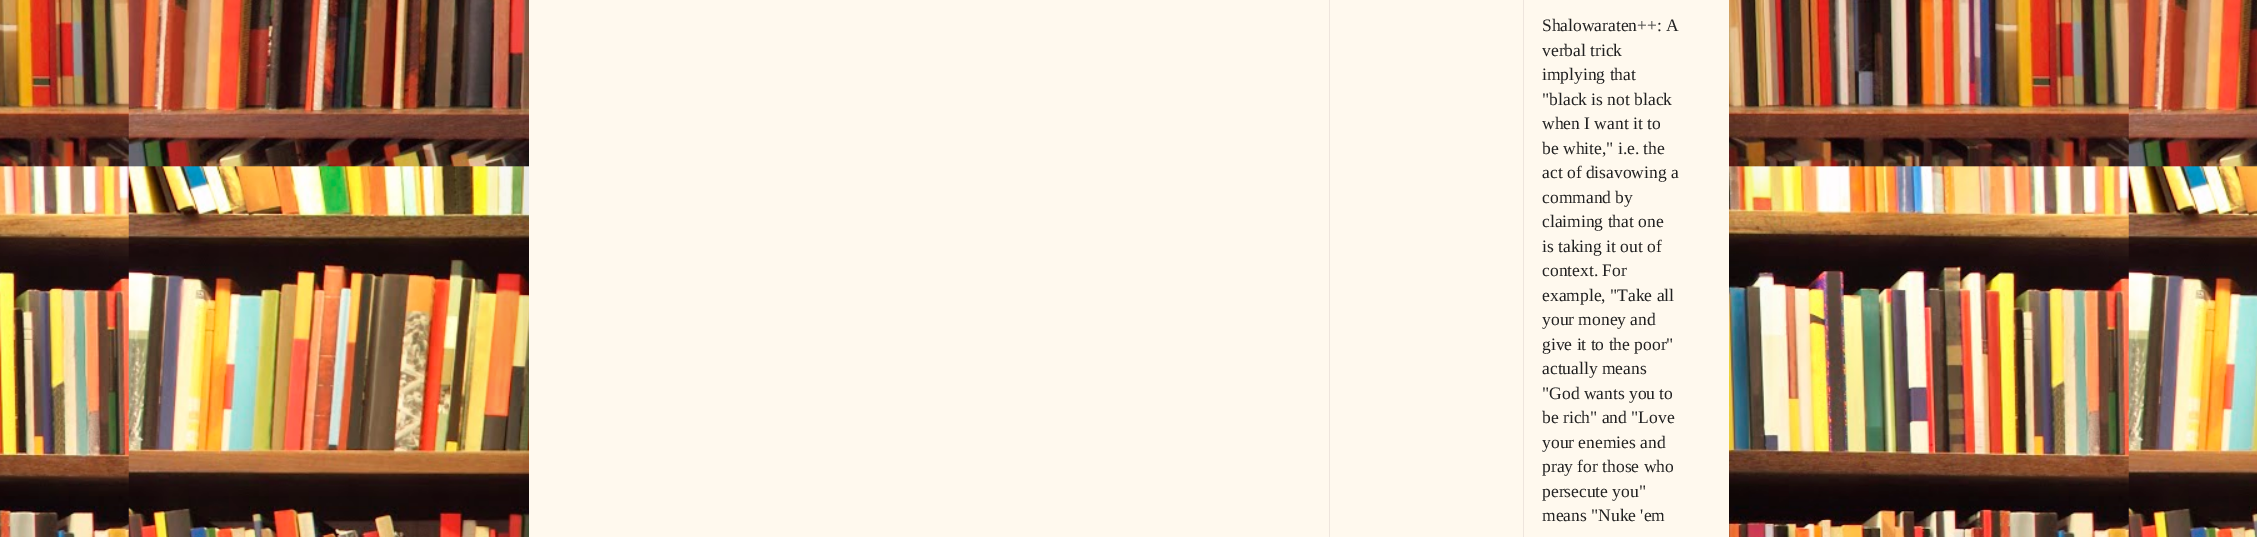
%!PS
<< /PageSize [2257 537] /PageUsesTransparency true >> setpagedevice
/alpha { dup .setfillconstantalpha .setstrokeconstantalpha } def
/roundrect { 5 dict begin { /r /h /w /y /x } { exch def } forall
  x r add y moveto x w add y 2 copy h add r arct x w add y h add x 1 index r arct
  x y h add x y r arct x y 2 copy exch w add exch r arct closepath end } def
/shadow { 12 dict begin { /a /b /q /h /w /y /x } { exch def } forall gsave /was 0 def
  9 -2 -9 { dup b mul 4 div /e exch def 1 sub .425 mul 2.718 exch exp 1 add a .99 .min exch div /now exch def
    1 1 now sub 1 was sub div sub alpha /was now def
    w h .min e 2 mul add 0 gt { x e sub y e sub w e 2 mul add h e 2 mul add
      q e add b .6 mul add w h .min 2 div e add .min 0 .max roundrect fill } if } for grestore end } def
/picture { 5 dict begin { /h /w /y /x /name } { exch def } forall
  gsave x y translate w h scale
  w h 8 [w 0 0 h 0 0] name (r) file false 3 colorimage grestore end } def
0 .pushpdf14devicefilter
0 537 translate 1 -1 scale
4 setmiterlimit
1 setgray
0 0 2257 537 rectfill
(img1.rgb) 0 0 2257 537 picture
0 setgray
529 -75 1200 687 0 25 0.15 shadow
1 0.976 0.933 setrgbcolor
529 0 1200 537 rectfill
0.933 0.898 0.867 setrgbcolor
1329 0 1 537 rectfill
1523 0 1 537 rectfill
/LiberationSerif-Regular [17.5 0 0 -17.5 0 0] selectfont
0.133 setgray
1542 31 moveto (Shalowaraten++: A) show
1542 56 moveto (verbal trick) show
1542 80 moveto (implying that) show
1542 105 moveto ("black is not black) show
1542 129 moveto (when I want it to) show
1542 154 moveto (be white," i.e. the) show
1542 178 moveto (act of disavowing a) show
1542 203 moveto (command by) show
1542 227 moveto (claiming that one) show
1542 252 moveto (is taking it out of) show
1542 276 moveto (context. For) show
1542 301 moveto (example, "Take all) show
1542 325 moveto (your money and) show
1542 350 moveto (give it to the poor") show
1542 374 moveto (actually means) show
1542 399 moveto ("God wants you to) show
1542 423 moveto (be rich" and "Love) show
1542 448 moveto (your enemies and) show
1542 472 moveto (pray for those who) show
1542 497 moveto (persecute you") show
1542 521 moveto (means "Nuke 'em) show
.poppdf14devicefilter showpage
